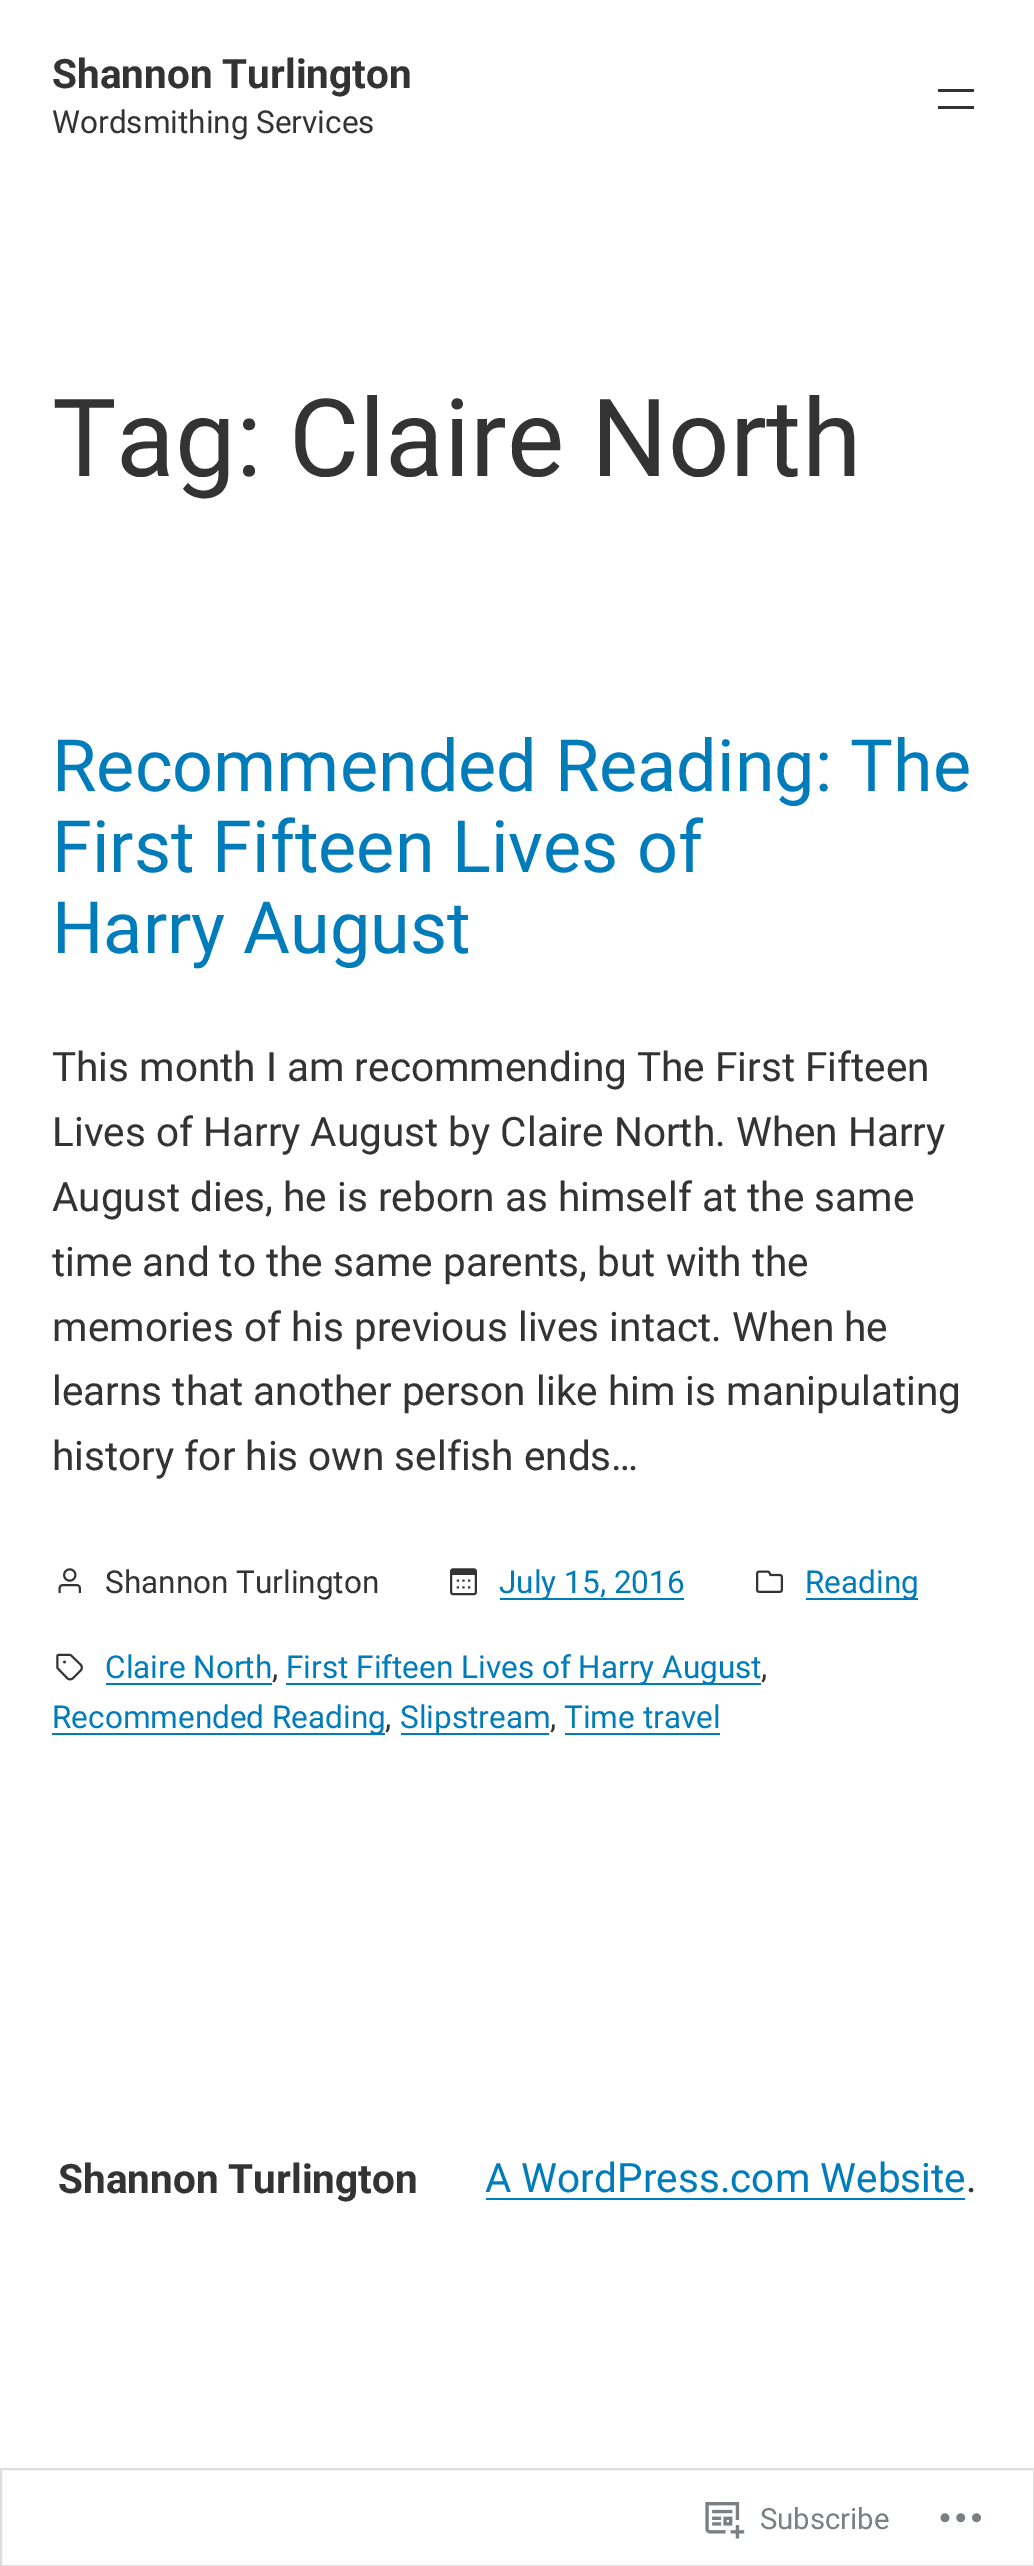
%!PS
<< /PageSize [1034 2566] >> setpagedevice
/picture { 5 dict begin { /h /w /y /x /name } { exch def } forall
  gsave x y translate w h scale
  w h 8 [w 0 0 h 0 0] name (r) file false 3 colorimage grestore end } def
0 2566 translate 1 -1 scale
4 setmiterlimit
1 setgray
0 0 1034 2566 rectfill
/Roboto-Bold [40.5 0 0 -40.5 0 0] selectfont
0.2 setgray
52 88 moveto (Shannon Turlington) show
/Roboto-Regular [31.5 0 0 -31.5 0 0] selectfont
52 133 moveto (Wordsmithing Services) show
938 89 36 3 rectfill
938 106 36 3 rectfill
/Roboto-Regular [108 0 0 -108 0 0] selectfont
52 476 moveto (Tag: Claire North) show
/Roboto-Regular [72 0 0 -72 0 0] selectfont
0 0.486 0.729 setrgbcolor
52 791 moveto (Recommended Reading: The) show
52 872 moveto (First Fifteen Lives of) show
52 953 moveto (Harry August) show
/Roboto-Regular [40.5 0 0 -40.5 0 0] selectfont
0.2 setgray
52 1081 moveto (This month I am recommending The First Fifteen) show
52 1146 moveto (Lives of Harry August by Claire North. When Harry) show
52 1211 moveto (August dies, he is reborn as himself at the same) show
52 1276 moveto (time and to the same parents, but with the) show
52 1341 moveto (memories of his previous lives intact. When he) show
52 1405 moveto (learns that another person like him is manipulating) show
52 1470 moveto (history for his own selfish ends…) show
(img1.rgb) 58 1568 23 25 picture
/Roboto-Regular [31.5 0 0 -31.5 0 0] selectfont
105 1593 moveto (Shannon Turlington) show
(img2.rgb) 450 1568 27 28 picture
0 0.486 0.729 setrgbcolor
500 1598 184 2 rectfill
499 1593 moveto (July 15, 2016) show
(img3.rgb) 756 1570 27 23 picture
806 1598 112 2 rectfill
805 1593 moveto (Reading) show
(img4.rgb) 56 1653 27 28 picture
105 1678 moveto (Claire North) show
106 1683 166 2 rectfill
0.2 setgray
272 1678 moveto (,) show
0 0.486 0.729 setrgbcolor
286 1683 475 2 rectfill
286 1678 moveto (First Fifteen Lives of Harry August) show
0.2 setgray
761 1678 moveto (,) show
0 0.486 0.729 setrgbcolor
52 1733 333 2 rectfill
52 1728 moveto (Recommended Reading) show
0.2 setgray
385 1728 moveto (,) show
0 0.486 0.729 setrgbcolor
401 1733 148 2 rectfill
400 1728 moveto (Slipstream) show
0.2 setgray
550 1728 moveto (,) show
0 0.486 0.729 setrgbcolor
564 1728 moveto (Time travel) show
565 1733 155 2 rectfill
/Roboto-Bold [40.5 0 0 -40.5 0 0] selectfont
0.2 setgray
58 2193 moveto (Shannon Turlington) show
/Roboto-Regular [40.5 0 0 -40.5 0 0] selectfont
0 0.486 0.729 setrgbcolor
485 2192 moveto (A WordPress.com Website) show
486 2198 479 2 rectfill
0.2 setgray
966 2192 moveto (.) show
0.867 0.867 0.875 setrgbcolor
2 setlinewidth
1 2469 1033 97 rectstroke
(img5.rgb) 705 2502 40 37 picture
/Roboto-Regular [29.25 0 0 -29.25 0 0] selectfont
0.482 0.498 0.522 setrgbcolor
760 2529 moveto (Subscribe) show
(img6.rgb) 940 2513 41 10 picture
showpage
